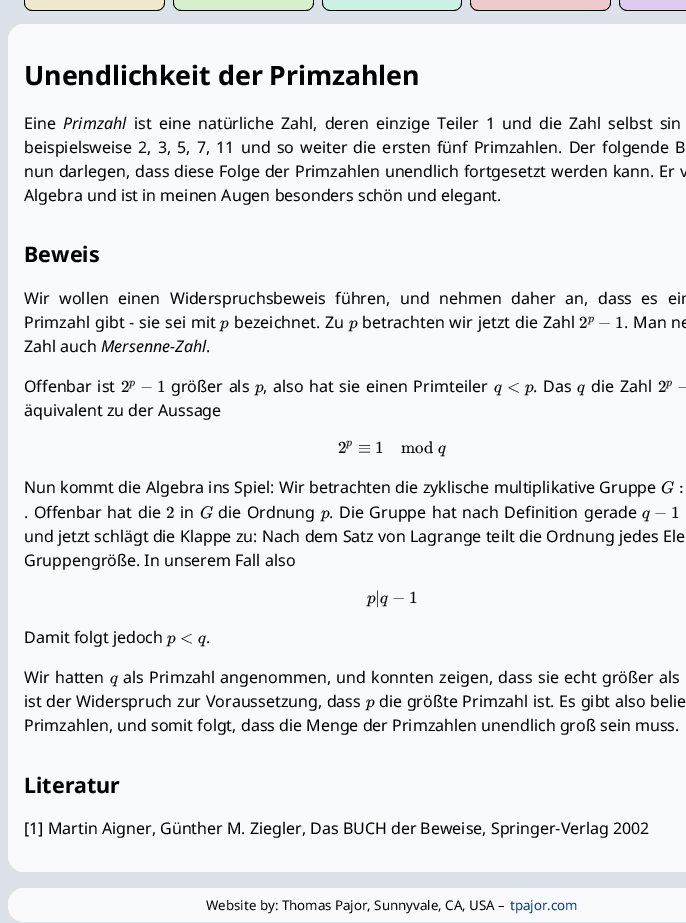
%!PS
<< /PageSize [686 923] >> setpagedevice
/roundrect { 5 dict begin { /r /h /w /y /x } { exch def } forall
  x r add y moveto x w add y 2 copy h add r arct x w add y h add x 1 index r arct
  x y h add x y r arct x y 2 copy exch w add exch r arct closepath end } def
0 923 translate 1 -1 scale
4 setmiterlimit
0.863 0.886 0.918 setrgbcolor
0 0 686 923 rectfill
0.941 0.91 0.796 setrgbcolor
newpath 24 -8 moveto 165 -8 lineto 165 3 lineto 165 7.5 161.5 11 157 11 curveto 32 11 lineto 27.5 11 24 7.5 24 3 curveto closepath fill
0 setgray
newpath 24 -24 moveto 165 -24 lineto 165 3 lineto 165 7 161 11 157 11 curveto 32 11 lineto 28 11 24 7 24 3 curveto closepath 25 -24 moveto 164 -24 lineto 164 3 lineto 164 7 161 10 157 10 curveto 32 10 lineto 28 10 25 7 25 3 curveto closepath eofill
0.835 0.941 0.796 setrgbcolor
newpath 173 -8 moveto 314 -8 lineto 314 3 lineto 314 7.5 310.5 11 306 11 curveto 181 11 lineto 176.5 11 173 7.5 173 3 curveto closepath fill
0 setgray
newpath 173 -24 moveto 314 -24 lineto 314 3 lineto 314 7 310 11 306 11 curveto 181 11 lineto 177 11 173 7 173 3 curveto closepath 174 -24 moveto 313 -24 lineto 313 3 lineto 313 7 310 10 306 10 curveto 181 10 lineto 177 10 174 7 174 3 curveto closepath eofill
0.796 0.941 0.894 setrgbcolor
newpath 322 -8 moveto 462 -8 lineto 462 3 lineto 462 7.5 458.5 11 454 11 curveto 330 11 lineto 325.5 11 322 7.5 322 3 curveto closepath fill
0 setgray
newpath 322 -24 moveto 462 -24 lineto 462 3 lineto 462 7 458 11 454 11 curveto 330 11 lineto 326 11 322 7 322 3 curveto closepath 323 -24 moveto 461 -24 lineto 461 3 lineto 461 7 458 10 454 10 curveto 330 10 lineto 326 10 323 7 323 3 curveto closepath eofill
0.941 0.796 0.796 setrgbcolor
newpath 470 -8 moveto 611 -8 lineto 611 3 lineto 611 7.5 607.5 11 603 11 curveto 478 11 lineto 473.5 11 470 7.5 470 3 curveto closepath fill
0 setgray
newpath 470 -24 moveto 611 -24 lineto 611 3 lineto 611 7 607 11 603 11 curveto 478 11 lineto 474 11 470 7 470 3 curveto closepath 471 -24 moveto 610 -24 lineto 610 3 lineto 610 7 607 10 603 10 curveto 478 10 lineto 474 10 471 7 471 3 curveto closepath eofill
0.878 0.796 0.941 setrgbcolor
newpath 619 -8 moveto 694 -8 lineto 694 3 lineto 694 7.5 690.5 11 686 11 curveto 627 11 lineto 622.5 11 619 7.5 619 3 curveto closepath fill
0 setgray
newpath 619 -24 moveto 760 -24 lineto 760 3 lineto 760 7 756 11 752 11 curveto 627 11 lineto 623 11 619 7 619 3 curveto closepath 620 -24 moveto 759 -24 lineto 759 3 lineto 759 7 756 10 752 10 curveto 627 10 lineto 623 10 620 7 620 3 curveto closepath eofill
0.973 0.98 0.988 setrgbcolor
8 24 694 848 16 roundrect fill
/NotoSans-Bold [26.7 0 0 -26.7 0 0] selectfont
0 setgray
24 85 moveto (Unendlichkeit der Primzahlen) show
/NotoSans-Regular [16 0 0 -16 0 0] selectfont
24 129 moveto (Eine) show
/NotoSans-Italic [16 0 0 -16 0 0] selectfont
63 129 moveto (Primzahl) show
/NotoSans-Regular [16 0 0 -16 0 0] selectfont
134 129 moveto 3 0 32 (ist eine natürliche Zahl, deren einzige Teiler 1 und die Zahl selbst sin) widthshow
24 153 moveto 2 0 32 (beispielsweise 2, 3, 5, 7, 11 und so weiter die ersten fünf Primzahlen. Der folgende B) widthshow
24 177 moveto 0.75 0 32 (nun darlegen, dass diese Folge der Primzahlen unendlich fortgesetzt werden kann. Er v) widthshow
24 201 moveto (Algebra und ist in meinen Augen besonders schön und elegant.) show
/NotoSans-Bold [21.5 0 0 -21.5 0 0] selectfont
24 262 moveto (Beweis) show
/NotoSans-Regular [16 0 0 -16 0 0] selectfont
24 304 moveto 5.4 0 32 (Wir wollen einen Widerspruchsbeweis führen, und nehmen daher an, dass es ein) widthshow
24 328 moveto 0.75 0 32 (Primzahl gibt - sie sei mit) widthshow
/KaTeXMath-Italic [17 0 0 -17 0 0] selectfont
220 328 moveto (p) show
/NotoSans-Regular [16 0 0 -16 0 0] selectfont
234 328 moveto 0.75 0 32 (bezeichnet. Zu) widthshow
/KaTeXMath-Italic [17 0 0 -17 0 0] selectfont
349 328 moveto (p) show
/NotoSans-Regular [16 0 0 -16 0 0] selectfont
362 328 moveto 0.75 0 32 (betrachten wir jetzt die Zahl) widthshow
/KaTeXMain-Regular [17 0 0 -17 0 0] selectfont
579 328 moveto (2) show
/KaTeXMath-Italic [12 0 0 -12 0 0] selectfont
588 322 moveto (p) show
/KaTeXMain-Regular [17 0 0 -17 0 0] selectfont
598 328 moveto (−) show
615 328 moveto (1) show
/NotoSans-Regular [16 0 0 -16 0 0] selectfont
624 328 moveto 0.75 0 32 (. Man ne) widthshow
24 352 moveto (Zahl auch) show
/NotoSans-Italic [16 0 0 -16 0 0] selectfont
101 352 moveto (Mersenne-Zahl) show
/NotoSans-Regular [16 0 0 -16 0 0] selectfont
206 352 moveto (.) show
24 392 moveto 1.5 0 32 (Offenbar ist) widthshow
/KaTeXMain-Regular [17 0 0 -17 0 0] selectfont
121 392 moveto (2) show
/KaTeXMath-Italic [12 0 0 -12 0 0] selectfont
129 386 moveto (p) show
/KaTeXMain-Regular [17 0 0 -17 0 0] selectfont
140 392 moveto (−) show
157 392 moveto (1) show
/NotoSans-Regular [16 0 0 -16 0 0] selectfont
171 392 moveto 1.5 0 32 (größer als) widthshow
/KaTeXMath-Italic [17 0 0 -17 0 0] selectfont
255 392 moveto (p) show
/NotoSans-Regular [16 0 0 -16 0 0] selectfont
263 392 moveto 1.5 0 32 (, also hat sie einen Primteiler) widthshow
/KaTeXMath-Italic [17 0 0 -17 0 0] selectfont
494 392 moveto (q) show
/KaTeXMain-Regular [17 0 0 -17 0 0] selectfont
507 392 moveto (<) show
/KaTeXMath-Italic [17 0 0 -17 0 0] selectfont
525 392 moveto (p) show
/NotoSans-Regular [16 0 0 -16 0 0] selectfont
533 392 moveto 1.5 0 32 (. Das) widthshow
/KaTeXMath-Italic [17 0 0 -17 0 0] selectfont
577 392 moveto (q) show
/NotoSans-Regular [16 0 0 -16 0 0] selectfont
591 392 moveto 1.5 0 32 (die Zahl) widthshow
/KaTeXMain-Regular [17 0 0 -17 0 0] selectfont
658 392 moveto (2) show
/KaTeXMath-Italic [12 0 0 -12 0 0] selectfont
666 386 moveto (p) show
/KaTeXMain-Regular [17 0 0 -17 0 0] selectfont
677 392 moveto (−) show
/NotoSans-Regular [16 0 0 -16 0 0] selectfont
24 416 moveto (äquivalent zu der Aussage) show
/KaTeXMain-Regular [17 0 0 -17 0 0] selectfont
338 453 moveto (2) show
/KaTeXMath-Italic [12 0 0 -12 0 0] selectfont
346 446 moveto (p) show
/KaTeXMain-Regular [17 0 0 -17 0 0] selectfont
358 453 moveto (≡) show
375 453 moveto (1) show
401 453 moveto (mod) show
/KaTeXMath-Italic [17 0 0 -17 0 0] selectfont
438 453 moveto (q) show
/NotoSans-Regular [16 0 0 -16 0 0] selectfont
24 493 moveto 0.1 0 32 (Nun kommt die Algebra ins Spiel: Wir betrachten die zyklische multiplikative Gruppe) widthshow
/KaTeXMath-Italic [17 0 0 -17 0 0] selectfont
661 493 moveto (G) show
/KaTeXMain-Regular [17 0 0 -17 0 0] selectfont
679 493 moveto (:) show
/NotoSans-Regular [16 0 0 -16 0 0] selectfont
24 518 moveto 1.5 0 32 (. Offenbar hat die) widthshow
/KaTeXMain-Regular [17 0 0 -17 0 0] selectfont
166 518 moveto (2) show
/NotoSans-Regular [16 0 0 -16 0 0] selectfont
180 518 moveto (in) show
/KaTeXMath-Italic [17 0 0 -17 0 0] selectfont
200 518 moveto (G) show
/NotoSans-Regular [16 0 0 -16 0 0] selectfont
218 518 moveto 1.5 0 32 (die Ordnung) widthshow
/KaTeXMath-Italic [17 0 0 -17 0 0] selectfont
321 518 moveto (p) show
/NotoSans-Regular [16 0 0 -16 0 0] selectfont
329 518 moveto 1.5 0 32 (. Die Gruppe hat nach Definition gerade) widthshow
/KaTeXMath-Italic [17 0 0 -17 0 0] selectfont
642 518 moveto (q) show
/KaTeXMain-Regular [17 0 0 -17 0 0] selectfont
654 518 moveto (−) show
671 518 moveto (1) show
/NotoSans-Regular [16 0 0 -16 0 0] selectfont
24 542 moveto 0.1 0 32 (und jetzt schlägt die Klappe zu: Nach dem Satz von Lagrange teilt die Ordnung jedes Ele) widthshow
24 566 moveto (Gruppengröße. In unserem Fall also) show
/KaTeXMath-Italic [17 0 0 -17 0 0] selectfont
367 603 moveto (p) show
/KaTeXMain-Regular [17 0 0 -17 0 0] selectfont
375 603 moveto (∣) show
/KaTeXMath-Italic [17 0 0 -17 0 0] selectfont
380 603 moveto (q) show
/KaTeXMain-Regular [17 0 0 -17 0 0] selectfont
392 603 moveto (−) show
409 603 moveto (1) show
/NotoSans-Regular [16 0 0 -16 0 0] selectfont
24 643 moveto (Damit folgt jedoch) show
/KaTeXMath-Italic [17 0 0 -17 0 0] selectfont
167 643 moveto (p) show
/KaTeXMain-Regular [17 0 0 -17 0 0] selectfont
180 643 moveto (<) show
/KaTeXMath-Italic [17 0 0 -17 0 0] selectfont
198 643 moveto (q) show
/NotoSans-Regular [16 0 0 -16 0 0] selectfont
206 643 moveto (.) show
24 683 moveto 1 0 32 (Wir hatten) widthshow
/KaTeXMath-Italic [17 0 0 -17 0 0] selectfont
110 683 moveto (q) show
/NotoSans-Regular [16 0 0 -16 0 0] selectfont
123 683 moveto 1.25 0 32 (als Primzahl angenommen, und konnten zeigen, dass sie echt größer als) widthshow
24 707 moveto 0.5 0 32 (ist der Widerspruch zur Voraussetzung, dass) widthshow
/KaTeXMath-Italic [17 0 0 -17 0 0] selectfont
366 707 moveto (p) show
/NotoSans-Regular [16 0 0 -16 0 0] selectfont
379 707 moveto 0.5 0 32 (die größte Primzahl ist. Es gibt also belie) widthshow
24 731 moveto (Primzahlen, und somit folgt, dass die Menge der Primzahlen unendlich groß sein muss.) show
/NotoSans-Bold [21.5 0 0 -21.5 0 0] selectfont
24 793 moveto (Literatur) show
/NotoSans-Regular [16 0 0 -16 0 0] selectfont
24 834 moveto ([1] Martin Aigner, Günther M. Ziegler, Das BUCH der Beweise, Springer-Verlag 2002) show
0.973 0.98 0.988 setrgbcolor
8 888 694 34 16 roundrect fill
/NotoSans-Regular [13.3 0 0 -13.3 0 0] selectfont
0 setgray
206 910 moveto (Website by: Thomas Pajor, Sunnyvale, CA, USA –) show
0.02 0.216 0.533 setrgbcolor
510 910 moveto (tpajor.com) show
showpage
